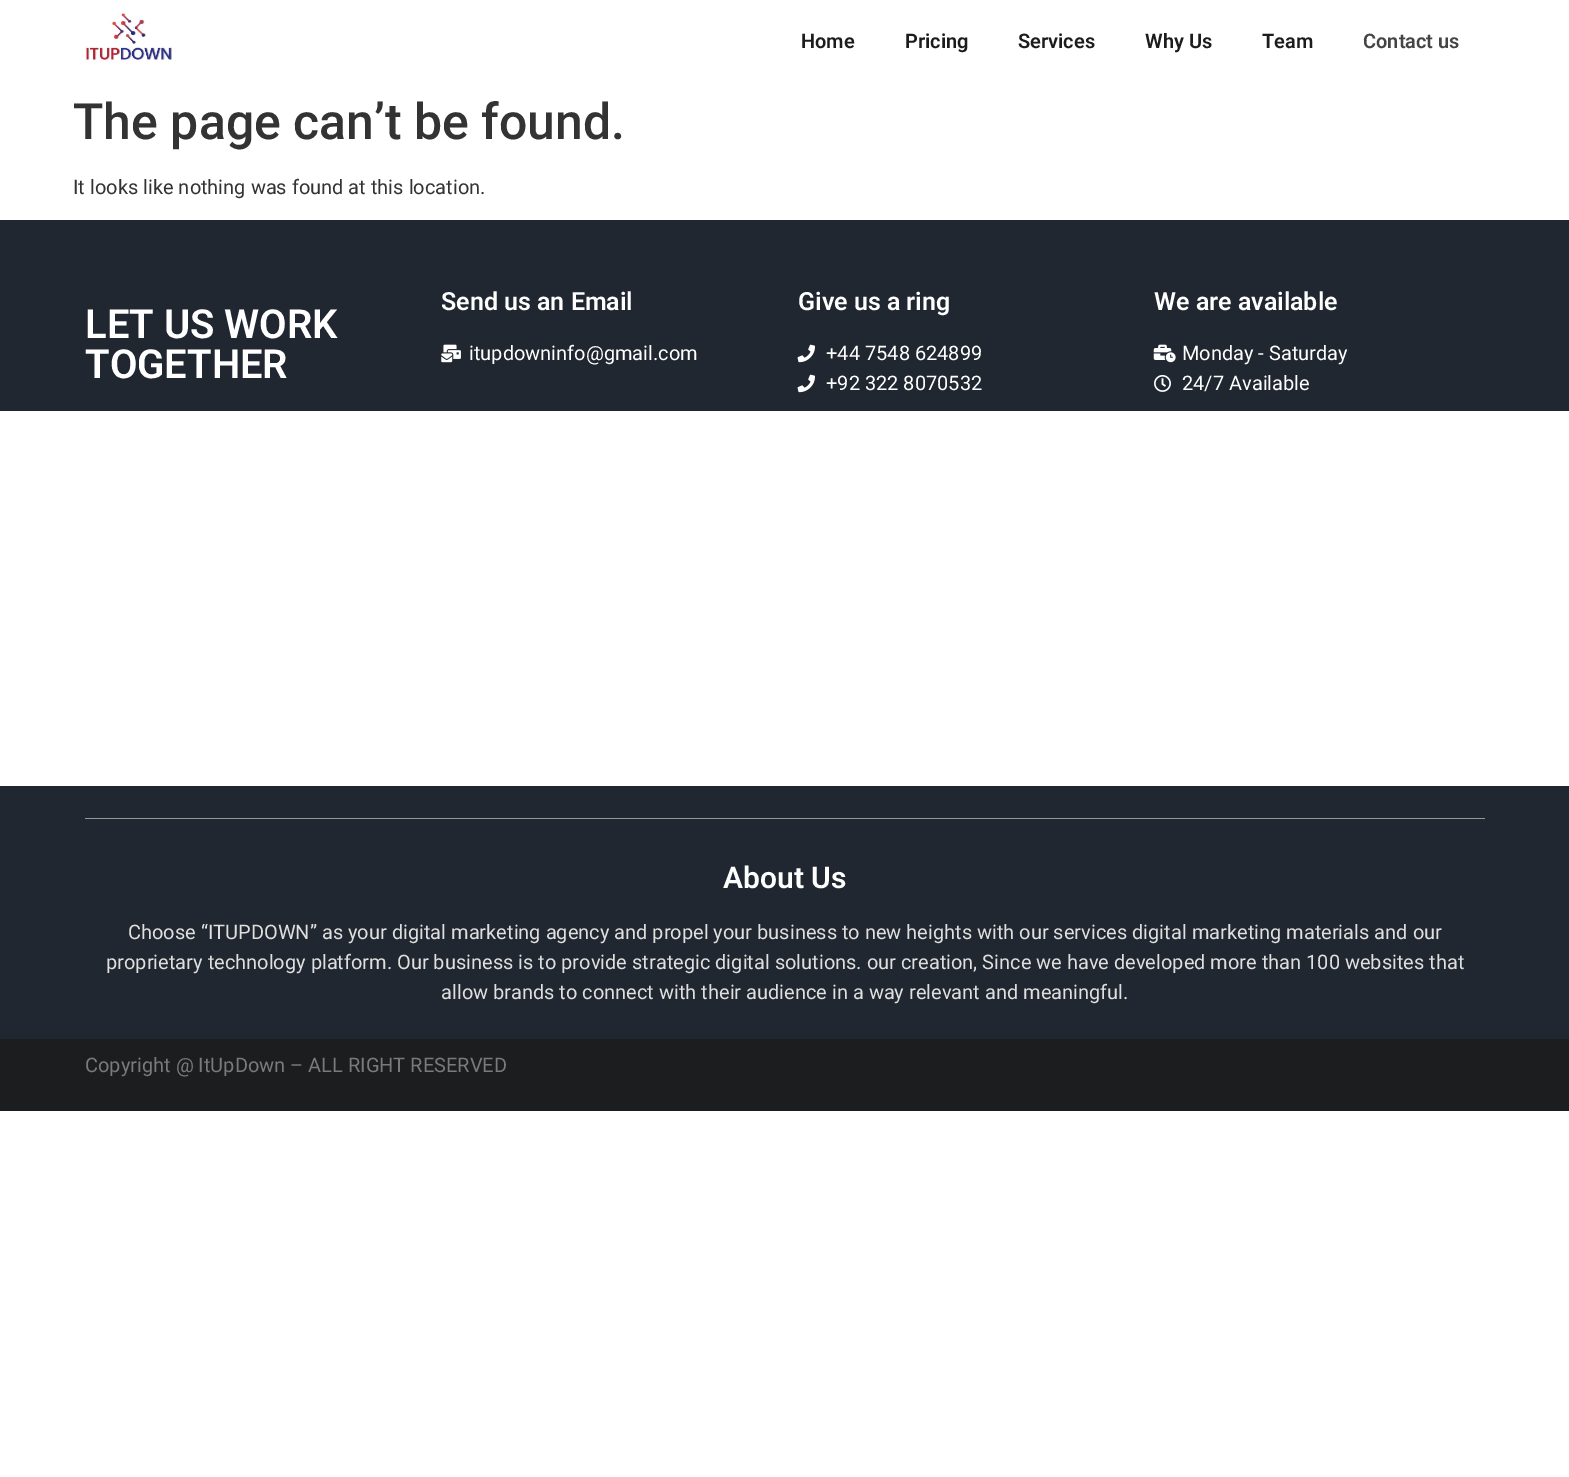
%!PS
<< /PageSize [1569 1477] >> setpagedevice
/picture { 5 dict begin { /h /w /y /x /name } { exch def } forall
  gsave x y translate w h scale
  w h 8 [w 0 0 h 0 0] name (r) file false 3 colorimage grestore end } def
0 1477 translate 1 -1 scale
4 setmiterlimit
1 setgray
0 0 1569 1477 rectfill
(img1.rgb) 85 12 88 51 picture
/Roboto-SemiBold [20 0 0 -20 0 0] selectfont
0.11 setgray
801 48 moveto (Home) show
905 48 moveto (Pricing) show
1018 48 moveto (Services) show
1145 48 moveto (Why Us) show
1262 48 moveto (Team) show
0.267 setgray
1363 48 moveto (Contact us) show
/Roboto-Medium [50 0 0 -50 0 0] selectfont
0.2 setgray
73 139 moveto (The page can’t be found.) show
/Roboto-Regular [20 0 0 -20 0 0] selectfont
73 194 moveto (It looks like nothing was found at this location.) show
0.125 0.153 0.188 setrgbcolor
0 220 1569 191 rectfill
/Roboto-SemiBold [40 0 0 -40 0 0] selectfont
1 setgray
85 338 moveto (LET US WORK) show
85 378 moveto (TOGETHER) show
/Roboto-SemiBold [25 0 0 -25 0 0] selectfont
441 310 moveto (Send us an Email) show
(img2.rgb) 441 344 20 19 picture
/Roboto-Regular [20 0 0 -20 0 0] selectfont
469 360 moveto (itupdowninfo@gmail.com) show
/Roboto-SemiBold [25 0 0 -25 0 0] selectfont
798 310 moveto (Give us a ring) show
(img3.rgb) 797 344 18 19 picture
/Roboto-Regular [20 0 0 -20 0 0] selectfont
826 360 moveto (+44 7548 624899) show
(img3.rgb) 797 374 18 19 picture
826 390 moveto (+92 322 8070532) show
/Roboto-SemiBold [25 0 0 -25 0 0] selectfont
1154 310 moveto (We are available) show
(img4.rgb) 1153 344 23 19 picture
/Roboto-Regular [20 0 0 -20 0 0] selectfont
1182 360 moveto (Monday - Saturday) show
(img5.rgb) 1154 375 17 17 picture
1182 390 moveto (24/7 Available) show
0.125 0.153 0.188 setrgbcolor
0 786 1569 253 rectfill
0.588 setgray
85 818 1400 1 rectfill
/Roboto-SemiBold [30 0 0 -30 0 0] selectfont
1 setgray
723 888 moveto (About Us) show
/Roboto-Regular [20 0 0 -20 0 0] selectfont
0.875 setgray
128 939 moveto (Choose “ITUPDOWN” as your digital marketing agency and propel your business to new heights with our services digital marketing materials and our) show
106 969 moveto (proprietary technology platform. Our business is to provide strategic digital solutions. our creation, Since we have developed more than 100 websites that) show
441 999 moveto (allow brands to connect with their audience in a way relevant and meaningful.) show
0.11 0.114 0.122 setrgbcolor
0 1039 1569 72 rectfill
0.478 setgray
85 1072 moveto (Copyright @ ItUpDown – ALL RIGHT RESERVED) show
showpage
